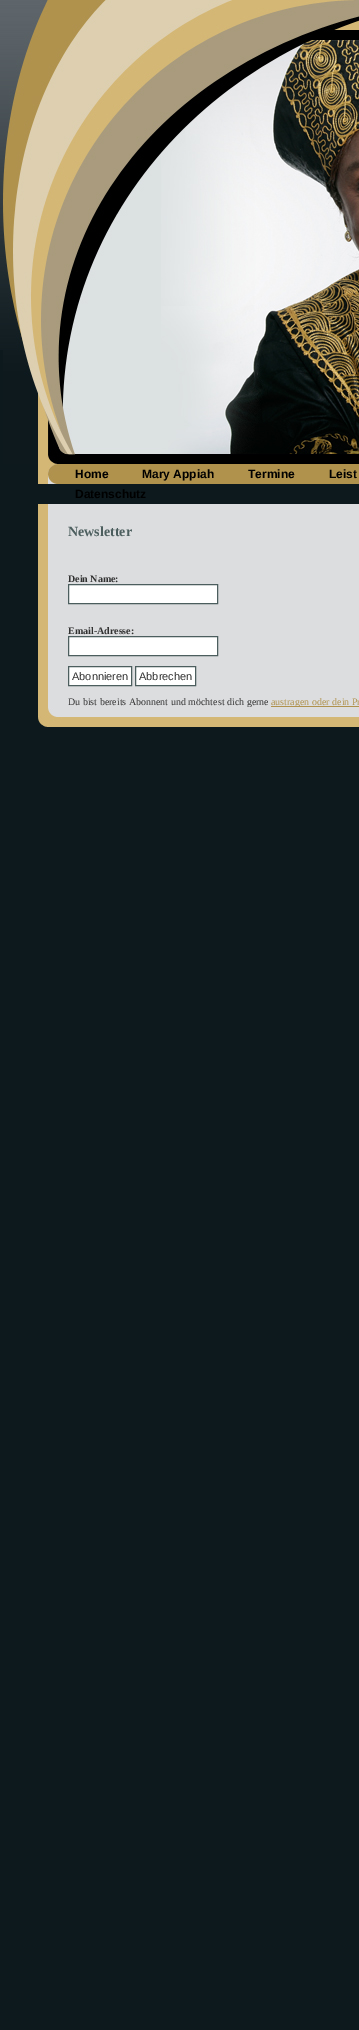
%!PS
<< /PageSize [359 2030] >> setpagedevice
/picture { 5 dict begin { /h /w /y /x /name } { exch def } forall
  gsave x y translate w h scale
  w h 8 [w 0 0 h 0 0] name (r) file false 3 colorimage grestore end } def
0 2030 translate 1 -1 scale
4 setmiterlimit
0.051 0.098 0.114 setrgbcolor
0 0 359 2030 rectfill
(img1.rgb) 0 0 3 350 picture
(img2.rgb) 3 0 356 464 picture
(img3.rgb) 161 40 198 414 picture
(img4.rgb) 38 464 321 20 picture
/LiberationSans-Bold [12 0 0 -12 0 0] selectfont
0 setgray
75 478 moveto (Home) show
142 478 moveto (Mary Appiah) show
248 478 moveto (Termine) show
329 478 moveto (Leist) show
75 498 moveto (Datenschutz) show
0.831 0.718 0.459 setrgbcolor
38 504 10 203 rectfill
0.863 0.867 0.875 setrgbcolor
48 504 311 203 rectfill
/LiberationSerif-Bold [14 0 0 -14 0 0] selectfont
0.298 0.369 0.369 setrgbcolor
68 536 moveto (Newsletter) show
/LiberationSerif-Bold [10 0 0 -10 0 0] selectfont
0.192 setgray
68 582 moveto (Dein Name:) show
1 setgray
newpath 68.5 584.5 moveto 217.5 584.5 lineto 217.5 603.5 lineto 68.5 603.5 lineto closepath gsave fill grestore
0.298 0.369 0.369 setrgbcolor
stroke
0.192 setgray
68 634 moveto (Email-Adresse:) show
1 setgray
newpath 68.5 636.5 moveto 217.5 636.5 lineto 217.5 655.5 lineto 68.5 655.5 lineto closepath gsave fill grestore
0.298 0.369 0.369 setrgbcolor
stroke
1 setgray
newpath 68.5 666.5 moveto 131.5 666.5 lineto 131.5 685.5 lineto 68.5 685.5 lineto closepath gsave fill grestore
0.298 0.369 0.369 setrgbcolor
stroke
/LiberationSans-Regular [11 0 0 -11 0 0] selectfont
0.192 setgray
72 680 moveto (Abonnieren) show
1 setgray
newpath 135.5 666.5 moveto 195.5 666.5 lineto 195.5 685.5 lineto 135.5 685.5 lineto closepath gsave fill grestore
0.298 0.369 0.369 setrgbcolor
stroke
0.192 setgray
139 680 moveto (Abbrechen) show
/LiberationSerif-Regular [10 0 0 -10 0 0] selectfont
68 705 moveto (Du bist bereits Abonnent und möchtest dich gerne) show
0.69 0.573 0.302 setrgbcolor
271 706 88 1 rectfill
271 705 moveto (austragen oder dein Pr) show
(img5.rgb) 38 707 321 20 picture
showpage
